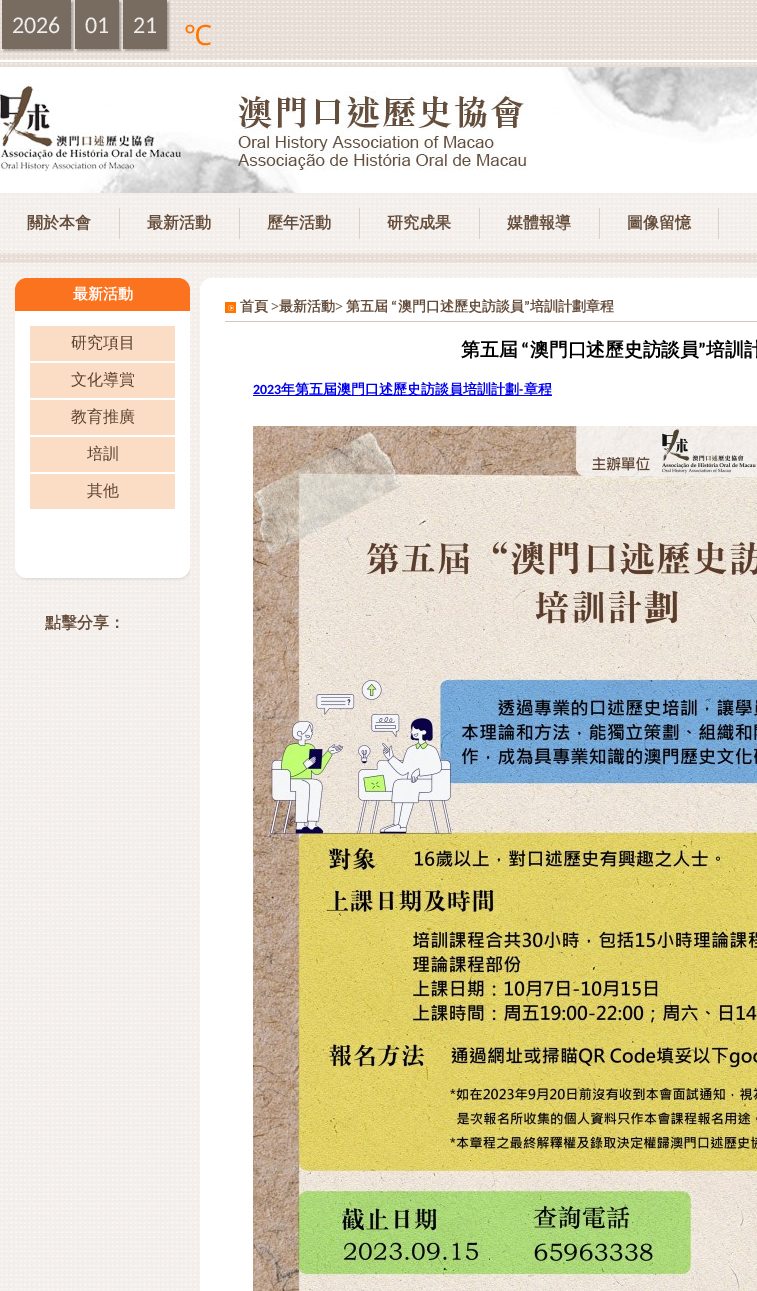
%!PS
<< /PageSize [757 1291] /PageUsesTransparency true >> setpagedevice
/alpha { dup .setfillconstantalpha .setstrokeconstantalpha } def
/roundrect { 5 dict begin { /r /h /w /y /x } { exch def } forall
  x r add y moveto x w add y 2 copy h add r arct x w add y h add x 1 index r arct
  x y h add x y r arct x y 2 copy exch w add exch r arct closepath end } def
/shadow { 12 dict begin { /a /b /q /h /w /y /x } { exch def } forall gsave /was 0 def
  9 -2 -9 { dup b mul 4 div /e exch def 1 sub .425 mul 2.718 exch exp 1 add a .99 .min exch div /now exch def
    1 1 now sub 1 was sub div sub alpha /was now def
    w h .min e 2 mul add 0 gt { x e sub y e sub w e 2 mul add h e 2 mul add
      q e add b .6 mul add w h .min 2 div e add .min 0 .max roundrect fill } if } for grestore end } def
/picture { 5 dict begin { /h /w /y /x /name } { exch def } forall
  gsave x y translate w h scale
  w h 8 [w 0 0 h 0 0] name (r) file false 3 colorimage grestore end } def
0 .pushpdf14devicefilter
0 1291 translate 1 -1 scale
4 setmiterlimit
1 setgray
0 0 757 1291 rectfill
(img1.rgb) 0 0 757 1291 picture
0 60 757 2 rectfill
0 setgray
4 2 69 49 0 1 0.3 shadow
0.471 0.424 0.38 setrgbcolor
2 0 69 49 rectfill
/Carlito-Regular [24 0 0 -24 0 0] selectfont
0.933 setgray
12 33 moveto (2026) show
0 setgray
77 2 44 49 0 1 0.3 shadow
0.471 0.424 0.38 setrgbcolor
75 0 44 49 rectfill
0.933 setgray
85 33 moveto (01) show
0 setgray
125 2 44 49 0 1 0.3 shadow
0.471 0.424 0.38 setrgbcolor
123 0 44 49 rectfill
0.933 setgray
133 33 moveto (21) show
/NotoSans-Regular [28 0 0 -28 0 0] selectfont
1 0.459 0 setrgbcolor
184 45 moveto (℃) show
(img2.rgb) 0 67 757 126 picture
0.5 alpha
1 setgray
0 193 757 60 rectfill
1 alpha
0.851 0.816 0.792 setrgbcolor
119 208 1 31 rectfill
/WenQuanYiZenHei-Bold [16 0 0 -16 0 0] selectfont
0.396 0.306 0.235 setrgbcolor
27 228 moveto (關於本會) show
0.851 0.816 0.792 setrgbcolor
239 208 1 31 rectfill
0.396 0.306 0.235 setrgbcolor
147 228 moveto (最新活動) show
0.851 0.816 0.792 setrgbcolor
359 208 1 31 rectfill
0.396 0.306 0.235 setrgbcolor
267 228 moveto (歷年活動) show
0.851 0.816 0.792 setrgbcolor
479 208 1 31 rectfill
0.396 0.306 0.235 setrgbcolor
387 228 moveto (研究成果) show
0.851 0.816 0.792 setrgbcolor
599 208 1 31 rectfill
0.396 0.306 0.235 setrgbcolor
507 228 moveto (媒體報導) show
0.851 0.816 0.792 setrgbcolor
718 208 1 31 rectfill
0.396 0.306 0.235 setrgbcolor
627 228 moveto (圖像留憶) show
0.5 alpha
1 setgray
0 263 757 1028 rectfill
gsave
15 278 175 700 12 roundrect clip newpath
1 alpha
0 setgray
16 279 175 300 12 1.5 0.1 shadow
grestore
1 alpha
15 278 175 300 12 roundrect fill
0.984 0.451 0.122 setrgbcolor
newpath 27 278 moveto 178 278 lineto 184.5 278 190 283.5 190 290 curveto 190 311 lineto 15 311 lineto 15 290 lineto 15 283.5 20.5 278 27 278 curveto closepath fill
/WenQuanYiZenHei-Bold [15 0 0 -15 0 0] selectfont
1 setgray
73 299 moveto (最新活動) show
0.98 0.867 0.769 setrgbcolor
30 326 145 35 rectfill
/WenQuanYiZenHei-Medium [16 0 0 -16 0 0] selectfont
0.365 0.267 0.192 setrgbcolor
71 348 moveto (研究項目) show
0.98 0.867 0.769 setrgbcolor
30 363 145 35 rectfill
0.365 0.267 0.192 setrgbcolor
71 385 moveto (文化導賞) show
0.98 0.867 0.769 setrgbcolor
30 400 145 35 rectfill
0.365 0.267 0.192 setrgbcolor
71 422 moveto (教育推廣) show
0.98 0.867 0.769 setrgbcolor
30 437 145 35 rectfill
0.365 0.267 0.192 setrgbcolor
87 459 moveto (培訓) show
0.98 0.867 0.769 setrgbcolor
30 474 145 35 rectfill
0.365 0.267 0.192 setrgbcolor
87 496 moveto (其他) show
/WenQuanYiZenHei-Bold [16 0 0 -16 0 0] selectfont
0.396 0.306 0.235 setrgbcolor
45 628 moveto (點擊分享：) show
1 setgray
200 278 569 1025 12 roundrect fill
(img3.rgb) 225 302 11 11 picture
0.82 0.78 0.749 setrgbcolor
225 321 532 1 rectfill
/WenQuanYiZenHei-Bold [14 0 0 -14 0 0] selectfont
0.396 0.306 0.235 setrgbcolor
240 311 moveto (首頁) show
/LiberationSerif-Bold [14 0 0 -14 0 0] selectfont
271 311 moveto (>) show
/WenQuanYiZenHei-Bold [14 0 0 -14 0 0] selectfont
279 311 moveto (最新活動) show
/LiberationSerif-Bold [14 0 0 -14 0 0] selectfont
335 311 moveto (>) show
/WenQuanYiZenHei-Bold [14 0 0 -14 0 0] selectfont
346 311 moveto (第五屆) show
/Carlito-Bold [14 0 0 -14 0 0] selectfont
391 311 moveto (“) show
/WenQuanYiZenHei-Bold [14 0 0 -14 0 0] selectfont
398 311 moveto (澳門口述歷史訪談員) show
/Carlito-Bold [14 0 0 -14 0 0] selectfont
524 311 moveto (”) show
/WenQuanYiZenHei-Bold [14 0 0 -14 0 0] selectfont
530 311 moveto (培訓計劃章程) show
/WenQuanYiZenHei-Bold [18.75 0 0 -18.75 0 0] selectfont
0 setgray
461 356 moveto (第五屆) show
/Carlito-Bold [18.75 0 0 -18.75 0 0] selectfont
521 356 moveto (“) show
/WenQuanYiZenHei-Bold [18.75 0 0 -18.75 0 0] selectfont
530 356 moveto (澳門口述歷史訪談員) show
/Carlito-Bold [18.75 0 0 -18.75 0 0] selectfont
698 356 moveto (”) show
/WenQuanYiZenHei-Bold [18.75 0 0 -18.75 0 0] selectfont
706 356 moveto (培訓計) show
/Carlito-Bold [14 0 0 -14 0 0] selectfont
0 0 0.933 setrgbcolor
253 394 moveto (2023) show
253 395 299 1 rectfill
/WenQuanYiZenHei-Bold [14 0 0 -14 0 0] selectfont
281 394 moveto (年第五屆澳門口述歷史訪談員培訓計劃) show
/Carlito-Bold [14 0 0 -14 0 0] selectfont
519 394 moveto (-) show
/WenQuanYiZenHei-Bold [14 0 0 -14 0 0] selectfont
524 394 moveto (章程) show
(img4.rgb) 253 426 504 865 picture
.poppdf14devicefilter showpage
